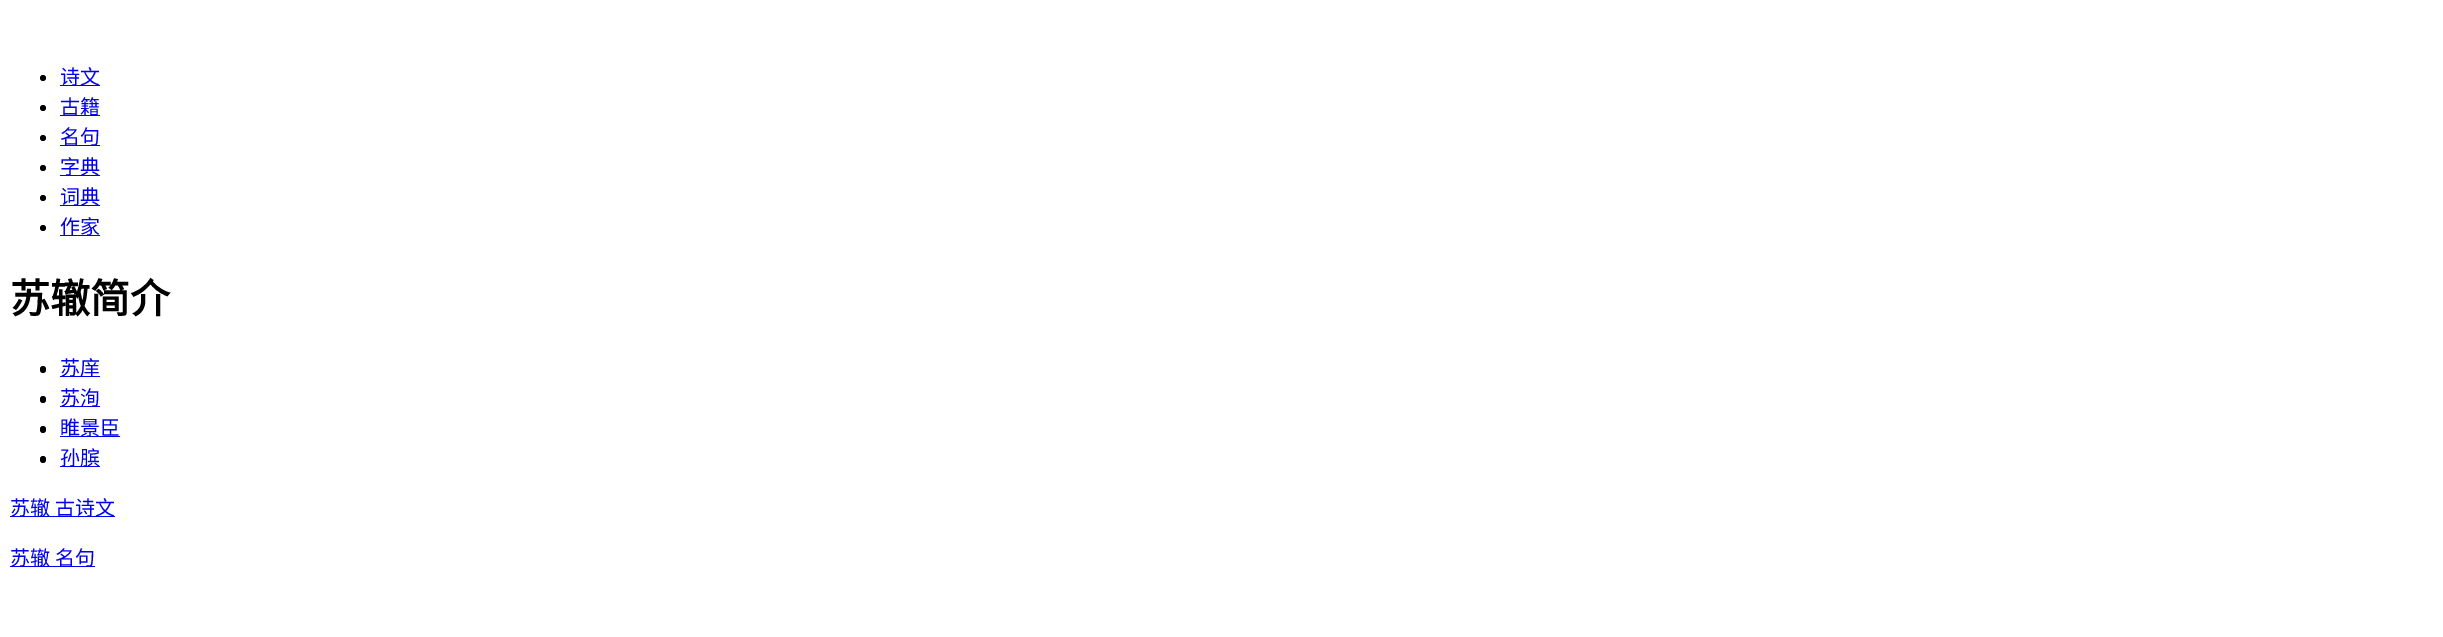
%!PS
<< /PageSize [2443 637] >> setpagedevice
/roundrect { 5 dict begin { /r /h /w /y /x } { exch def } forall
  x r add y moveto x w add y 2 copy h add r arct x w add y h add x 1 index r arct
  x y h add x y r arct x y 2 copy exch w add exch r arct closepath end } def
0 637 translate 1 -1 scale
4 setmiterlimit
1 setgray
0 0 2443 637 rectfill
0 setgray
newpath 43 78 3 0 360 arc closepath fill
0 0 0.933 setrgbcolor
60 85 40 1 rectfill
/NotoSansCJKSC-Regular [20 0 0 -20 0 0] selectfont
60 84 moveto (诗文) show
0 setgray
newpath 43 108 3 0 360 arc closepath fill
0 0 0.933 setrgbcolor
60 115 40 1 rectfill
60 114 moveto (古籍) show
0 setgray
newpath 43 138 3 0 360 arc closepath fill
0 0 0.933 setrgbcolor
60 145 40 1 rectfill
60 144 moveto (名句) show
0 setgray
newpath 43 168 3 0 360 arc closepath fill
0 0 0.933 setrgbcolor
60 175 40 1 rectfill
60 174 moveto (字典) show
0 setgray
newpath 43 198 3 0 360 arc closepath fill
0 0 0.933 setrgbcolor
60 205 40 1 rectfill
60 204 moveto (词典) show
0 setgray
newpath 43 228 3 0 360 arc closepath fill
0 0 0.933 setrgbcolor
60 235 40 1 rectfill
60 234 moveto (作家) show
/NotoSansCJKSC-Bold [40 0 0 -40 0 0] selectfont
0 setgray
10 313 moveto (苏辙简介) show
40 366 6 7 3 roundrect fill
0 0 0.933 setrgbcolor
60 376 40 1 rectfill
/NotoSansCJKSC-Regular [20 0 0 -20 0 0] selectfont
60 375 moveto (苏庠) show
0 setgray
40 396 6 7 3 roundrect fill
0 0 0.933 setrgbcolor
60 406 40 1 rectfill
60 405 moveto (苏洵) show
0 setgray
40 426 6 7 3 roundrect fill
0 0 0.933 setrgbcolor
60 436 60 1 rectfill
60 435 moveto (睢景臣) show
0 setgray
40 456 6 7 3 roundrect fill
0 0 0.933 setrgbcolor
60 466 40 1 rectfill
60 465 moveto (孙膑) show
10 516 105 1 rectfill
10 515 moveto (苏辙) show
55 515 moveto (古诗文) show
10 566 85 1 rectfill
10 565 moveto (苏辙) show
55 565 moveto (名句) show
showpage
